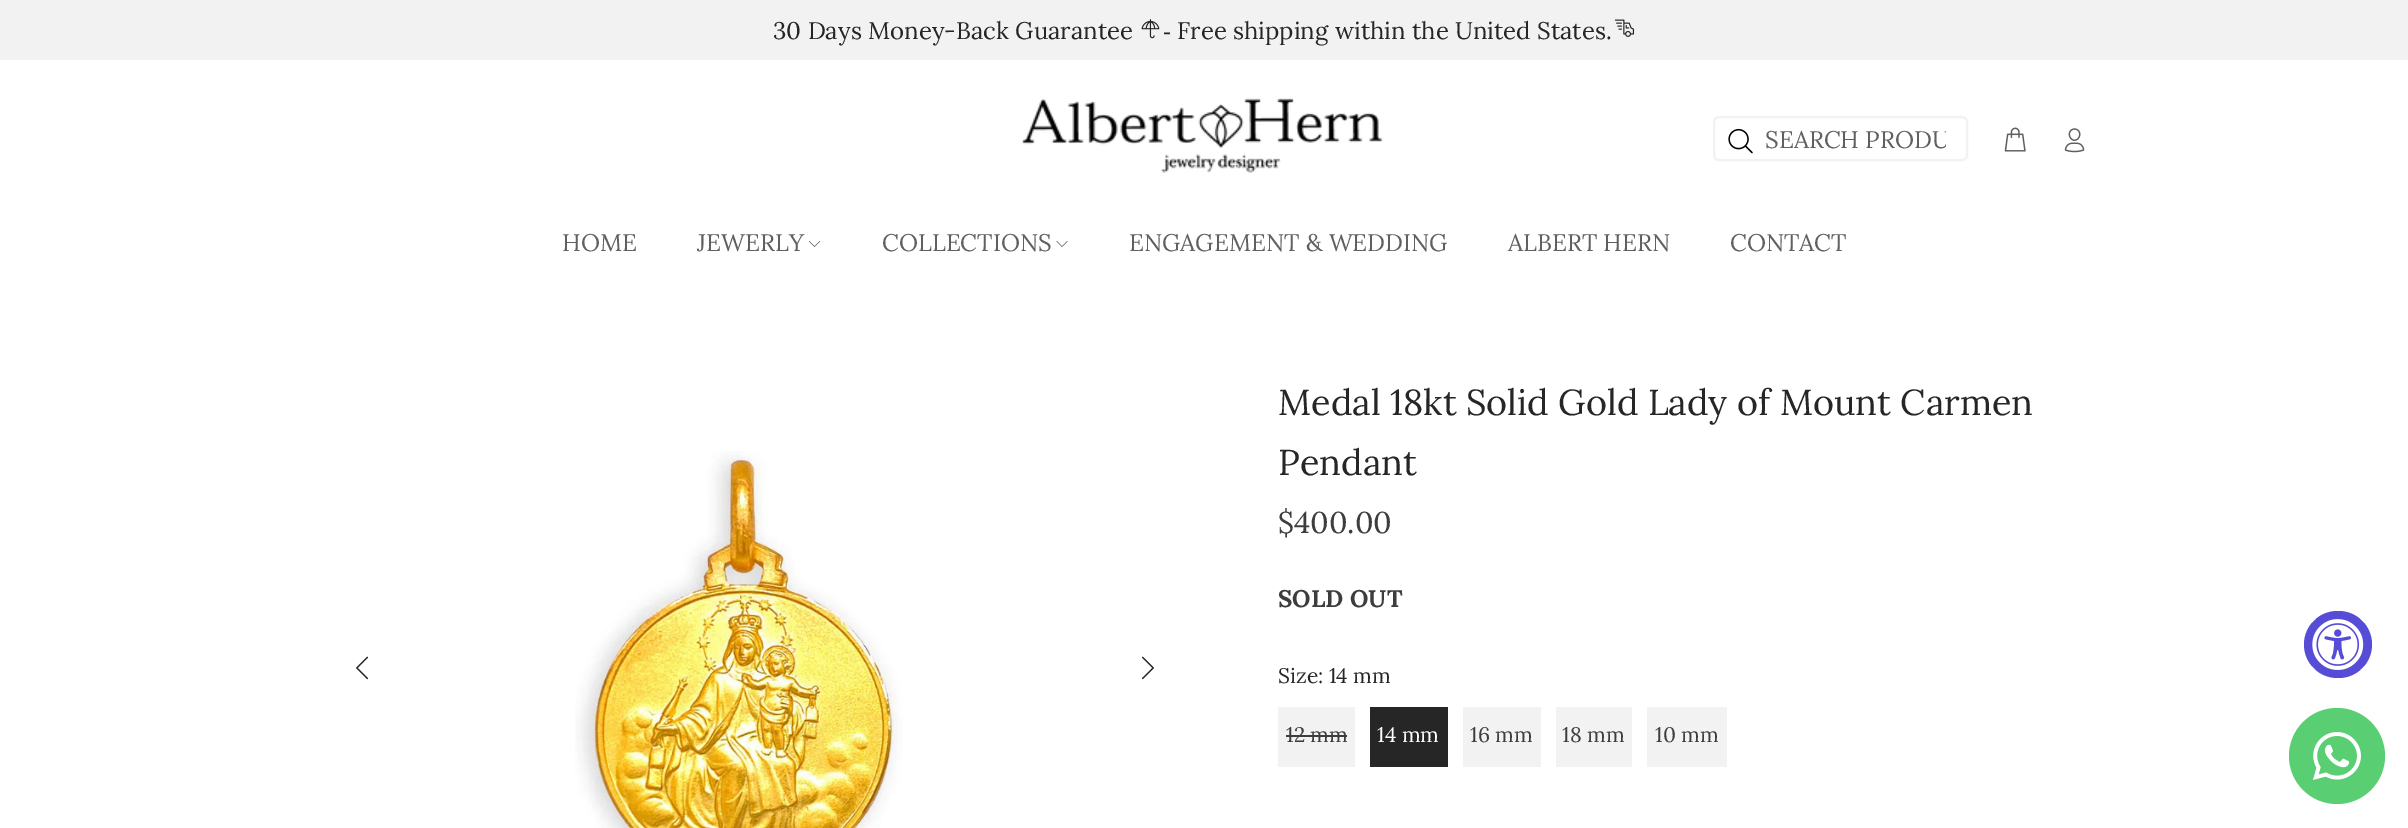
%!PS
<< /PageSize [2408 828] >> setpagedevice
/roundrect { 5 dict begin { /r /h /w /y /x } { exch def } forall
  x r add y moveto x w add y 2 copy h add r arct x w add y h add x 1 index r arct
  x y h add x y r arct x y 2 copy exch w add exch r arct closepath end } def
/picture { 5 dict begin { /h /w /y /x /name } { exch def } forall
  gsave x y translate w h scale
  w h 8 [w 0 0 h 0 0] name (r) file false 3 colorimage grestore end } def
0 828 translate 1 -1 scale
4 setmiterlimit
1 setgray
0 0 2408 828 rectfill
0.949 setgray
0 0 2408 60 rectfill
/Lora-Regular [24 0 0 -24 0 0] selectfont
0.149 setgray
773 39 moveto (30 Days Money-Back Guarantee) show
(img1.rgb) 1141 19 19 20 picture
/LiberationSerif-Regular [24 0 0 -24 0 0] selectfont
1163 39 moveto (-) show
/Lora-Regular [24 0 0 -24 0 0] selectfont
1177 39 moveto (Free shipping within the United States.) show
(img2.rgb) 1614 19 21 18 picture
(img3.rgb) 1021 98 362 75 picture
0.949 setgray
2 setlinewidth
1714 117 253 43 5 roundrect stroke
(img4.rgb) 1728 128 25 26 picture
gsave
1766 125 180 30 rectclip
0.376 setgray
1765 148 moveto (SEARCH PRODU) show
grestore
(img5.rgb) 2004 127 22 25 picture
(img6.rgb) 2064 128 21 25 picture
0.376 setgray
562 251 moveto (HOME) show
697 251 moveto (JEWERLY) show
(img7.rgb) 808 241 13 6 picture
882 251 moveto (COLLECTIONS) show
(img8.rgb) 1056 241 12 6 picture
1129 251 moveto (ENGAGEMENT & WEDDING) show
1508 251 moveto (ALBERT HERN) show
1730 251 moveto (CONTACT) show
(img9.rgb) 575 451 328 377 picture
(img10.rgb) 356 656 13 24 picture
(img11.rgb) 1142 656 12 24 picture
/Lora-Regular [36 0 0 -36 0 0] selectfont
0.149 setgray
1278 415 moveto (Medal 18kt Solid Gold Lady of Mount Carmen) show
1278 475 moveto (Pendant) show
/Lora-Regular [30 0 0 -30 0 0] selectfont
0.239 setgray
1278 533 moveto ($400.00) show
/Lora-Bold [24 0 0 -24 0 0] selectfont
1278 607 moveto (SOLD OUT) show
/Lora-Regular [21 0 0 -21 0 0] selectfont
0.149 setgray
1278 683 moveto (Size: 14 mm) show
0.949 setgray
1278 707 77 60 rectfill
0.239 setgray
1286 742 moveto (12 mm) show
1286 735 61 2 rectfill
0.149 setgray
1370 707 78 60 rectfill
1 setgray
1377 742 moveto (14 mm) show
0.949 setgray
1463 707 78 60 rectfill
0.239 setgray
1470 742 moveto (16 mm) show
0.949 setgray
1556 707 76 60 rectfill
0.239 setgray
1562 742 moveto (18 mm) show
0.949 setgray
1647 707 80 60 rectfill
0.239 setgray
1655 742 moveto (10 mm) show
0.341 0.298 0.835 setrgbcolor
2304 611 68 67 33.5 roundrect fill
(img12.rgb) 2312 619 52 51 picture
0.349 0.808 0.447 setrgbcolor
newpath 2337 756 48 0 360 arc closepath fill
(img13.rgb) 2313 732 48 48 picture
showpage
